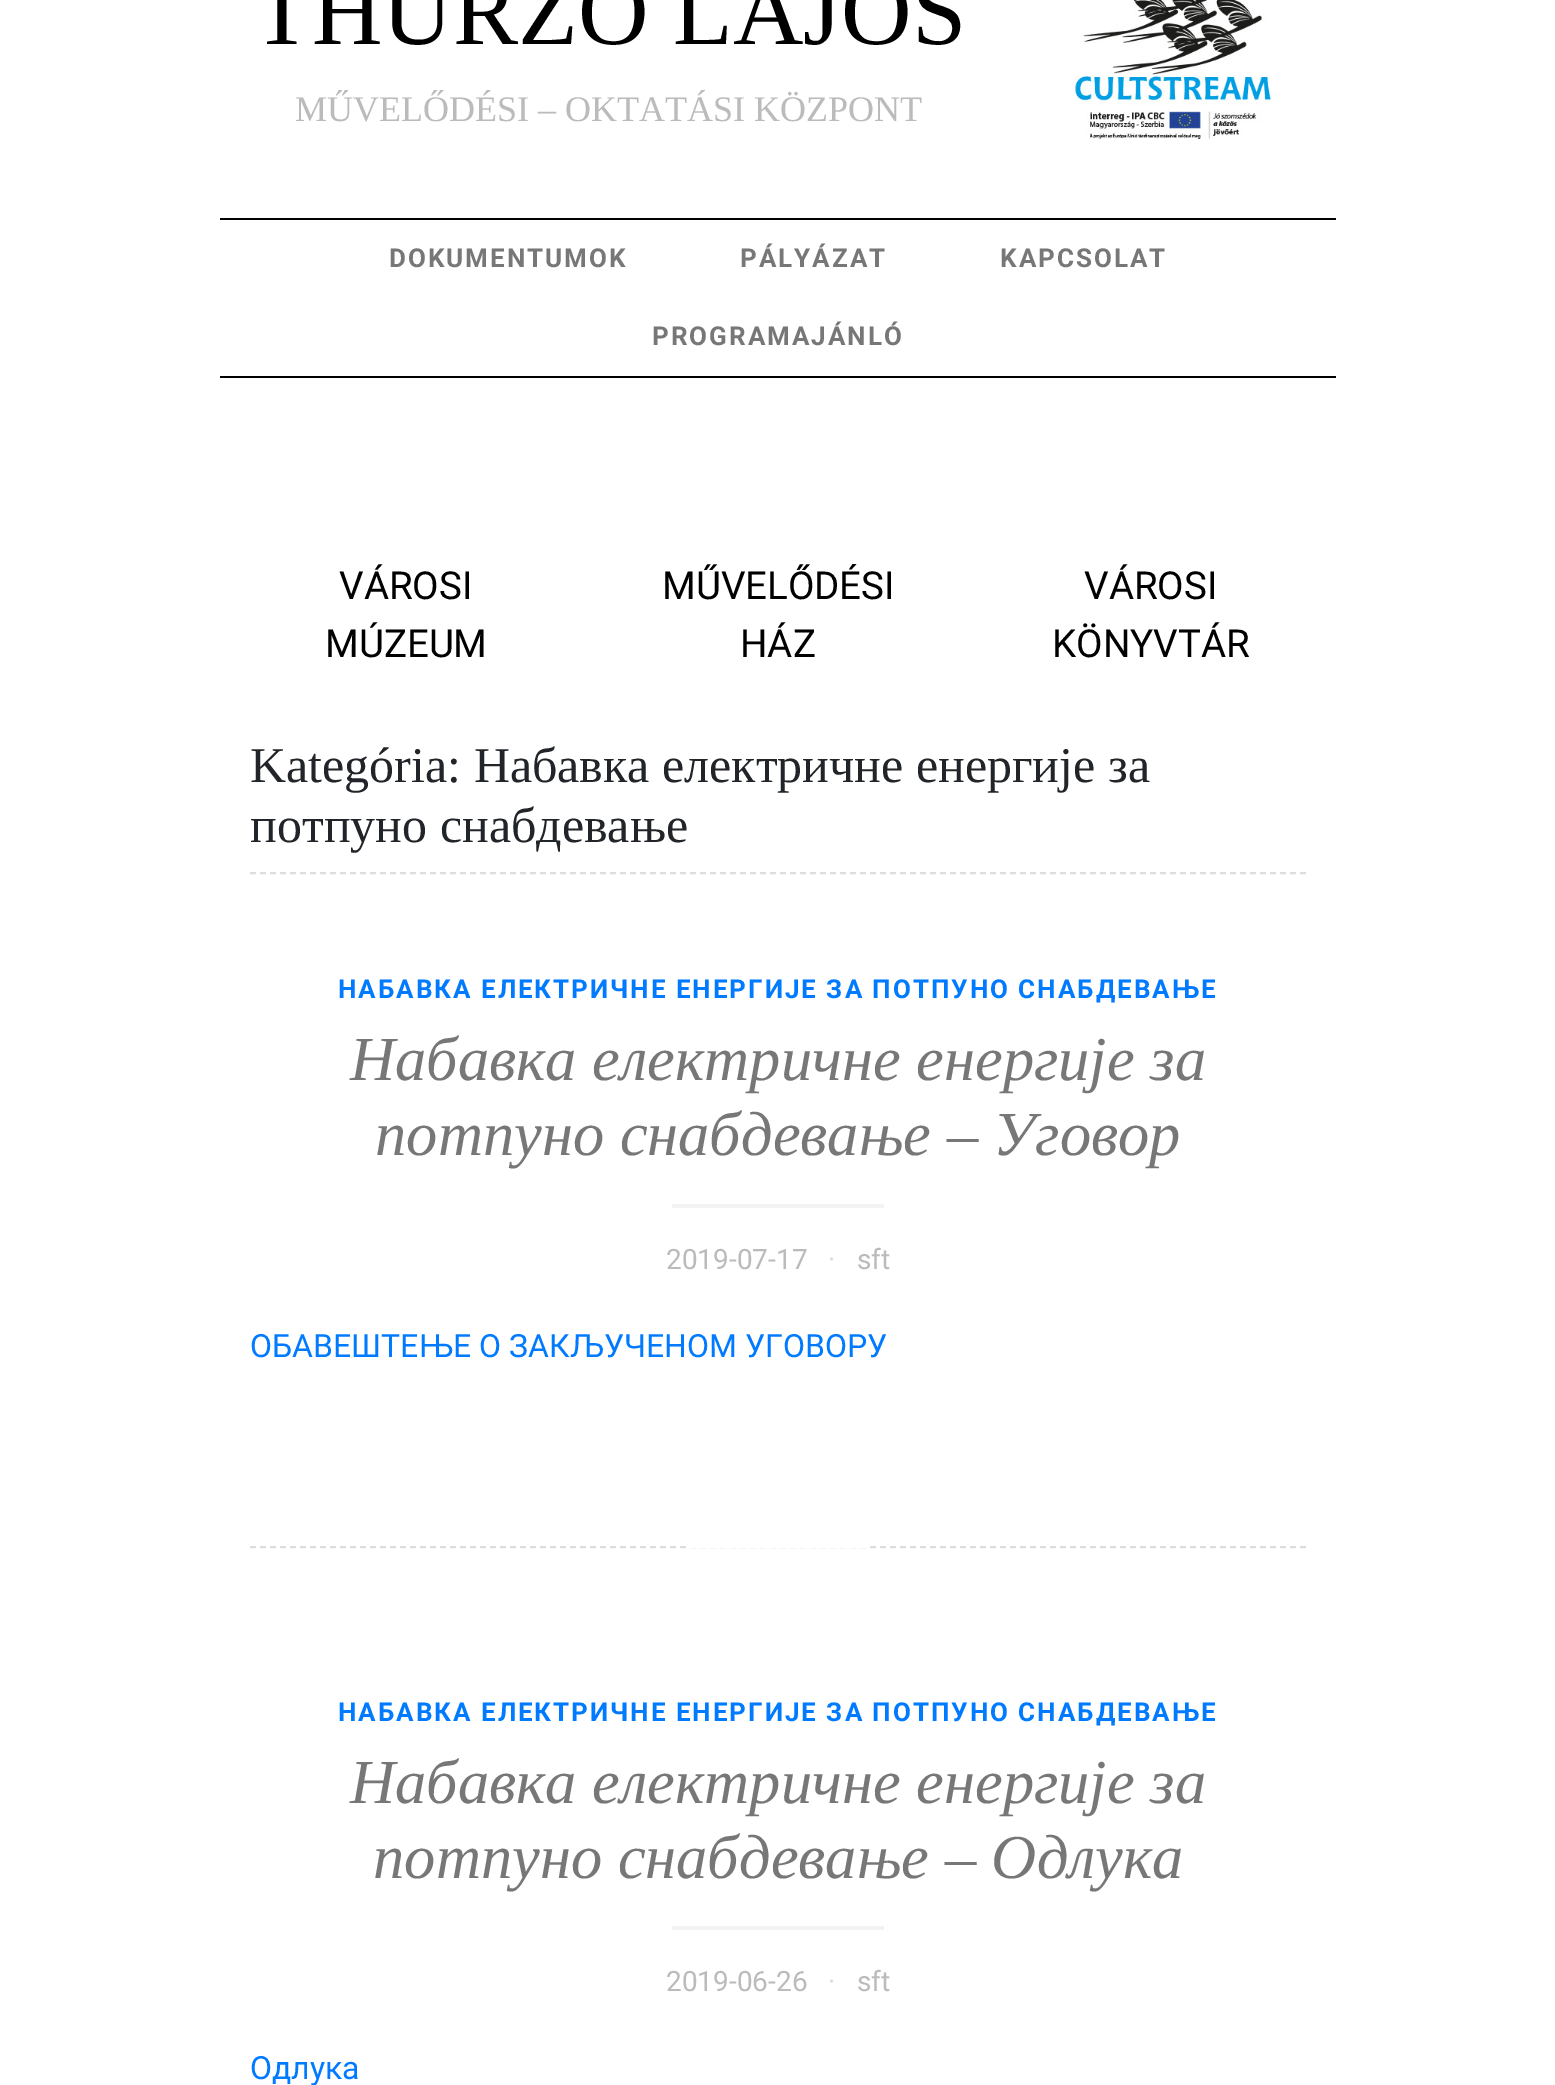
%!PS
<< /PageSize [1555 2085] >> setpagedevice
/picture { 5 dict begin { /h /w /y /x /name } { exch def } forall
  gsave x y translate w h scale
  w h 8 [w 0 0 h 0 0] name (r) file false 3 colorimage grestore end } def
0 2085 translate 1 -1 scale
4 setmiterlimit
1 setgray
0 0 1555 2085 rectfill
/LiberationSerif-Regular [97.75 0 0 -97.75 0 0] selectfont
0 setgray
252 44 moveto (THURZÓ LAJOS) show
/LiberationSerif-Regular [36 0 0 -36 0 0] selectfont
0.733 setgray
295 121 moveto (MŰVELŐDÉSI – OKTATÁSI KÖZPONT) show
(img1.rgb) 1074 0 199 139 picture
0 setgray
220 218 1116 2 rectfill
220 376 1116 2 rectfill
/Roboto-Bold [26 0 0 -26 0 0] selectfont
0.467 setgray
389 267 moveto 2 0 (DOKUMENTUMOK) ashow
740 267 moveto 2 0 (PÁLYÁZAT) ashow
1000 267 moveto 2 0 (KAPCSOLAT) ashow
652 345 moveto 2 0 (PROGRAMAJÁNLÓ) ashow
/Roboto-Regular [38.5 0 0 -38.5 0 0] selectfont
0 setgray
339 599 moveto (VÁROSI) show
325 657 moveto (MÚZEUM) show
662 599 moveto (MŰVELŐDÉSI) show
740 657 moveto (HÁZ) show
1084 599 moveto (VÁROSI) show
1052 657 moveto (KÖNYVTÁR) show
0.867 setgray
2 setlinewidth
[6 4] 0 setdash
newpath 250 873 moveto 1306 873 lineto stroke
/LiberationSerif-Regular [50 0 0 -50 0 0] selectfont
0.129 0.145 0.161 setrgbcolor
250 782 moveto (Kategória: Набавка електричне енергије за) show
250 842 moveto (потпуно снабдевање) show
0.867 setgray
newpath 250 1547 moveto 1306 1547 lineto stroke
/Roboto-Bold [26 0 0 -26 0 0] selectfont
0 0.482 1 setrgbcolor
338 998 moveto 2 0 (НАБАВКА ЕЛЕКТРИЧНЕ ЕНЕРГИЈЕ ЗА ПОТПУНО СНАБДЕВАЊЕ) ashow
/LiberationSerif-Italic [62.5 0 0 -62.5 0 0] selectfont
0.467 setgray
350 1080 moveto (Набавка електричне енергије за) show
375 1155 moveto (потпуно снабдевање – Уговор) show
0.953 setgray
672 1204 212 4 rectfill
/Roboto-Regular [28 0 0 -28 0 0] selectfont
0.733 setgray
666 1269 moveto (2019-07-17) show
0.867 setgray
828 1269 moveto (·) show
0.733 setgray
857 1269 moveto (sft) show
/Roboto-Regular [32 0 0 -32 0 0] selectfont
0 0.482 1 setrgbcolor
250 1357 moveto (ОБАВЕШТЕЊЕ О ЗАКЉУЧЕНОМ УГОВОРУ) show
1 setgray
690 1546 176 2 rectfill
/Roboto-Bold [26 0 0 -26 0 0] selectfont
0 0.482 1 setrgbcolor
338 1721 moveto 2 0 (НАБАВКА ЕЛЕКТРИЧНЕ ЕНЕРГИЈЕ ЗА ПОТПУНО СНАБДЕВАЊЕ) ashow
/LiberationSerif-Italic [62.5 0 0 -62.5 0 0] selectfont
0.467 setgray
350 1803 moveto (Набавка електричне енергије за) show
373 1878 moveto (потпуно снабдевање – Одлука) show
0.953 setgray
672 1926 212 4 rectfill
/Roboto-Regular [28 0 0 -28 0 0] selectfont
0.733 setgray
666 1991 moveto (2019-06-26) show
0.867 setgray
828 1991 moveto (·) show
0.733 setgray
857 1991 moveto (sft) show
/Roboto-Regular [32 0 0 -32 0 0] selectfont
0 0.482 1 setrgbcolor
250 2079 moveto (Oдлука) show
showpage
